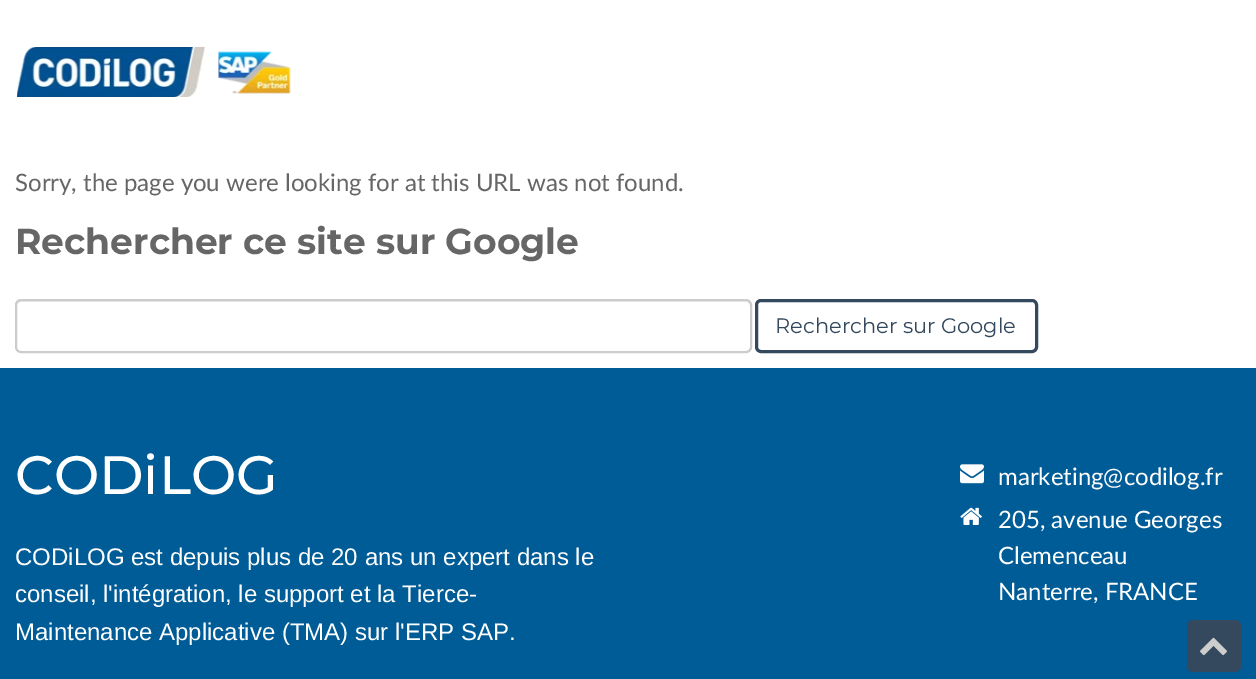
%!PS
<< /PageSize [1256 679] >> setpagedevice
/roundrect { 5 dict begin { /r /h /w /y /x } { exch def } forall
  x r add y moveto x w add y 2 copy h add r arct x w add y h add x 1 index r arct
  x y h add x y r arct x y 2 copy exch w add exch r arct closepath end } def
/picture { 5 dict begin { /h /w /y /x /name } { exch def } forall
  gsave x y translate w h scale
  w h 8 [w 0 0 h 0 0] name (r) file false 3 colorimage grestore end } def
0 679 translate 1 -1 scale
4 setmiterlimit
1 setgray
0 0 1256 679 rectfill
(img1.rgb) 17 47 274 50 picture
/Lato-Regular [24 0 0 -24 0 0] selectfont
0.4 setgray
15 191 moveto (Sorry, the page you were looking for at this URL was not found.) show
/Montserrat-Bold [36 0 0 -36 0 0] selectfont
15 254 moveto (Rechercher ce site sur Google) show
0.925 setgray
newpath 21 302 moveto 746 302 lineto 748 302 750 304 750 306 curveto 750 305 lineto 750 302 748 300 745 300 curveto 22 300 lineto 20 300 18 302 17 304 curveto 18 303 20 302 21 302 curveto closepath fill
0.8 setgray
2 setlinewidth
16 300 735 52 5 roundrect stroke
0.204 0.286 0.369 setrgbcolor
3 setlinewidth
756.5 300.5 280 51 4.5 roundrect stroke
/Montserrat-Regular [21 0 0 -21 0 0] selectfont
775 333 moveto (Rechercher sur Google) show
0 0.361 0.588 setrgbcolor
0 368 1256 311 rectfill
/Montserrat-Medium [54 0 0 -54 0 0] selectfont
1 setgray
15 494 moveto (CODiLOG) show
/LiberationSans-Regular [24 0 0 -24 0 0] selectfont
15 565 moveto (CODiLOG est depuis plus de 20 ans un expert dans le) show
15 602 moveto (conseil, l'intégration, le support et la Tierce-) show
15 640 moveto (Maintenance Applicative \(TMA\) sur l'ERP SAP.) show
(img2.rgb) 960 464 24 20 picture
/Lato-Regular [24 0 0 -24 0 0] selectfont
998 485 moveto (marketing@codilog.fr) show
(img3.rgb) 960 507 22 18 picture
998 528 moveto (205, avenue Georges) show
998 564 moveto (Clemenceau) show
998 600 moveto (Nanterre, FRANCE) show
0.204 0.286 0.369 setrgbcolor
1187 620 54 52 6 roundrect fill
(img4.rgb) 1200 637 27 19 picture
showpage
